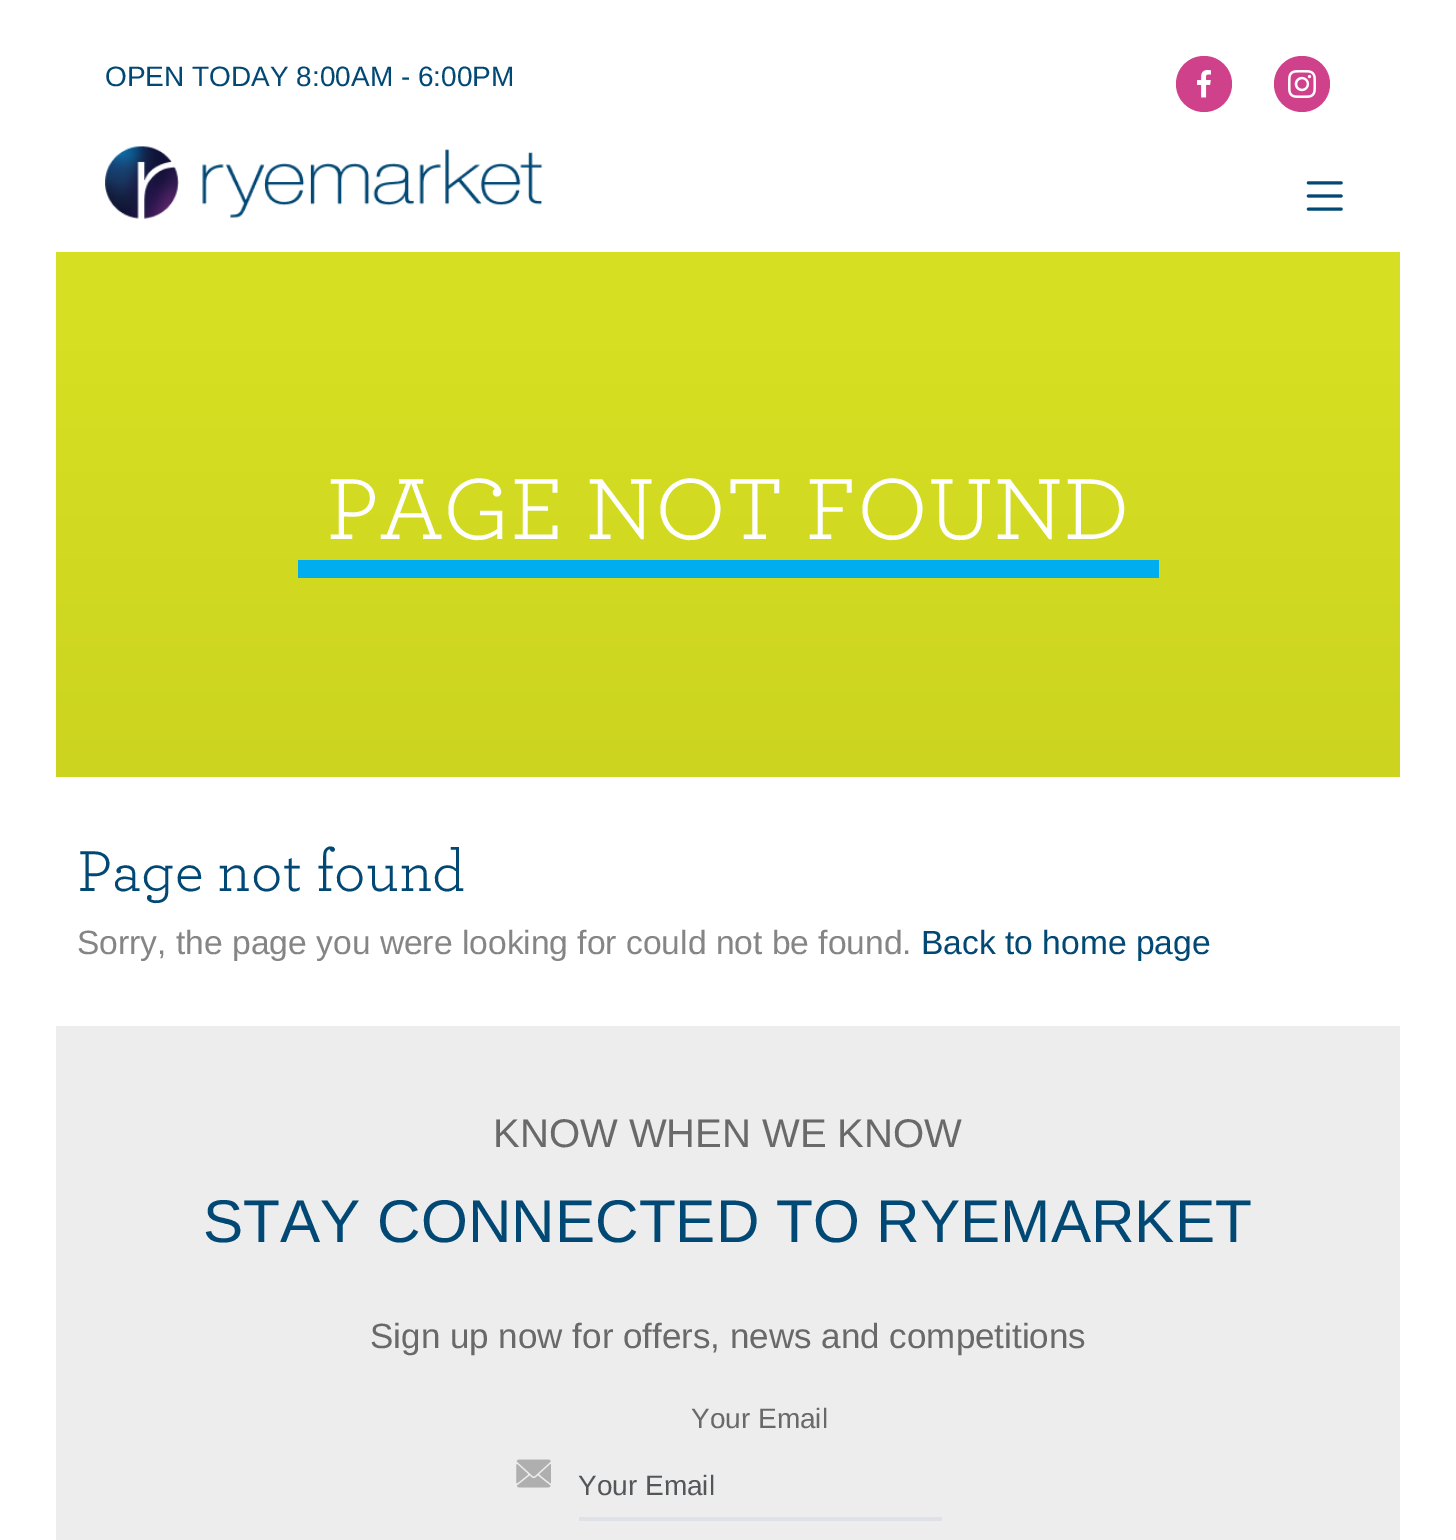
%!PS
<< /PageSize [1456 1540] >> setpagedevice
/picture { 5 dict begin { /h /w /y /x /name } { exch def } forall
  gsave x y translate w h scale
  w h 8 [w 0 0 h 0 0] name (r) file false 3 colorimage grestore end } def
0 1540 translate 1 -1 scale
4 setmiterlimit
1 setgray
0 0 1456 1540 rectfill
/LiberationSans-Regular [28 0 0 -28 0 0] selectfont
0.004 0.282 0.455 setrgbcolor
105 86 moveto (OPEN TODAY 8:00AM - 6:00PM) show
0.812 0.255 0.545 setrgbcolor
newpath 1204 84 28 0 360 arc closepath fill
(img1.rgb) 1197 70 14 28 picture
newpath 1302 84 28 0 360 arc closepath fill
(img2.rgb) 1288 70 28 28 picture
(img3.rgb) 105 146 438 73 picture
(img4.rgb) 1306 181 37 30 picture
gsave newpath 56 252 moveto 1400 252 lineto 1400 777 lineto 56 777 lineto closepath clip newpath
<< /ShadingType 2 /ColorSpace /DeviceRGB /Coords [728 252 728 777] /Extend [true true] /Function << /FunctionType 3 /Domain [0 1] /Functions [<< /FunctionType 2 /Domain [0 1] /C0 [0.843 0.875 0.137] /C1 [0.843 0.875 0.137] /N 1 >> << /FunctionType 2 /Domain [0 1] /C0 [0.843 0.875 0.137] /C1 [0.8 0.831 0.122] /N 1 >>] /Bounds [0.15] /Encode [0 1 0 1] >> >> shfill grestore
0 0.678 0.933 setrgbcolor
298 560 861 18 rectfill
/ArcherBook-Regular [90.75 0 0 -90.75 0 0] selectfont
1 setgray
326 539 moveto (PAGE NOT FOUND) show
/ArcherBook-Regular [60.3 0 0 -60.3 0 0] selectfont
0.004 0.282 0.455 setrgbcolor
77 891 moveto (Page not found) show
/LiberationSans-Regular [33.6 0 0 -33.6 0 0] selectfont
0.522 setgray
77 954 moveto (Sorry, the page you were looking for could not be found.) show
0.004 0.282 0.455 setrgbcolor
921 954 moveto (Back to home page) show
0.929 setgray
56 1026 1344 514 rectfill
/LiberationSans-Regular [40 0 0 -40 0 0] selectfont
0.412 setgray
493 1147 moveto (KNOW WHEN WE KNOW) show
/LiberationSans-Regular [60.3 0 0 -60.3 0 0] selectfont
0.004 0.282 0.455 setrgbcolor
203 1242 moveto (STAY CONNECTED TO RYEMARKET) show
/LiberationSans-Regular [35 0 0 -35 0 0] selectfont
0.412 setgray
370 1348 moveto (Sign up now for offers, news and competitions) show
(img5.rgb) 516 1459 35 29 picture
/LiberationSans-Regular [28 0 0 -28 0 0] selectfont
691 1428 moveto (Your Email) show
0.871 0.886 0.902 setrgbcolor
579 1517 363 4 rectfill
0.329 0.341 0.353 setrgbcolor
578 1495 moveto (Your Email) show
showpage
